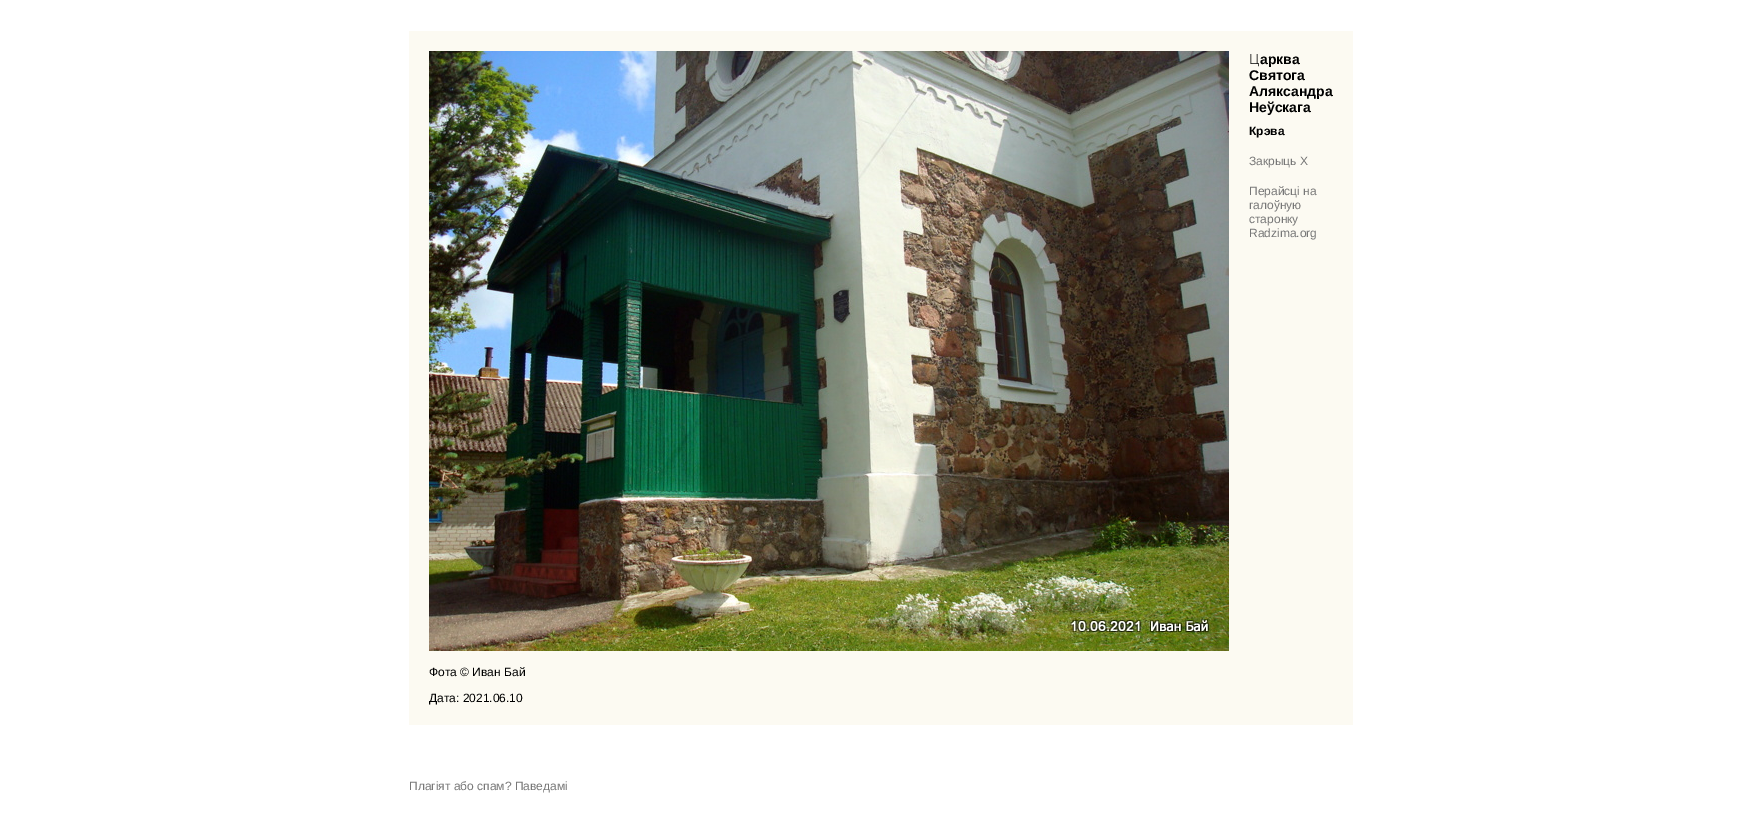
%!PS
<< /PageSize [1762 835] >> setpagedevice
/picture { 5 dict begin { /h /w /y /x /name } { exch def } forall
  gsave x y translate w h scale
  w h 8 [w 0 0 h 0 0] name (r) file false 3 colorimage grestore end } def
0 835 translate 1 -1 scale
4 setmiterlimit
1 setgray
0 0 1762 835 rectfill
0.988 0.98 0.949 setrgbcolor
409 31 944 694 rectfill
/NotoSans-Light [14 0 0 -14 0 0] selectfont
0 setgray
1249 64 moveto (Ц) show
/LiberationSans-Bold [14 0 0 -14 0 0] selectfont
1260 64 moveto (арква) show
1249 80 moveto (Святога) show
1249 96 moveto (Аляксандра) show
1249 112 moveto (Неўскага) show
/LiberationSans-Bold [12 0 0 -12 0 0] selectfont
1249 135 moveto (Крэва) show
/LiberationSans-Regular [12 0 0 -12 0 0] selectfont
0.467 setgray
1249 165 moveto (Закрыць X) show
1249 195 moveto (Перайсці на) show
1249 209 moveto (галоўную) show
1249 223 moveto (старонку) show
1249 237 moveto (Radzima.org) show
(img1.rgb) 429 51 800 600 picture
0 setgray
429 676 moveto (Фота © Иван Бай) show
429 702 moveto (Дата: 2021.06.10) show
0.467 setgray
409 790 moveto (Плагіят або спам? Паведамі) show
showpage
